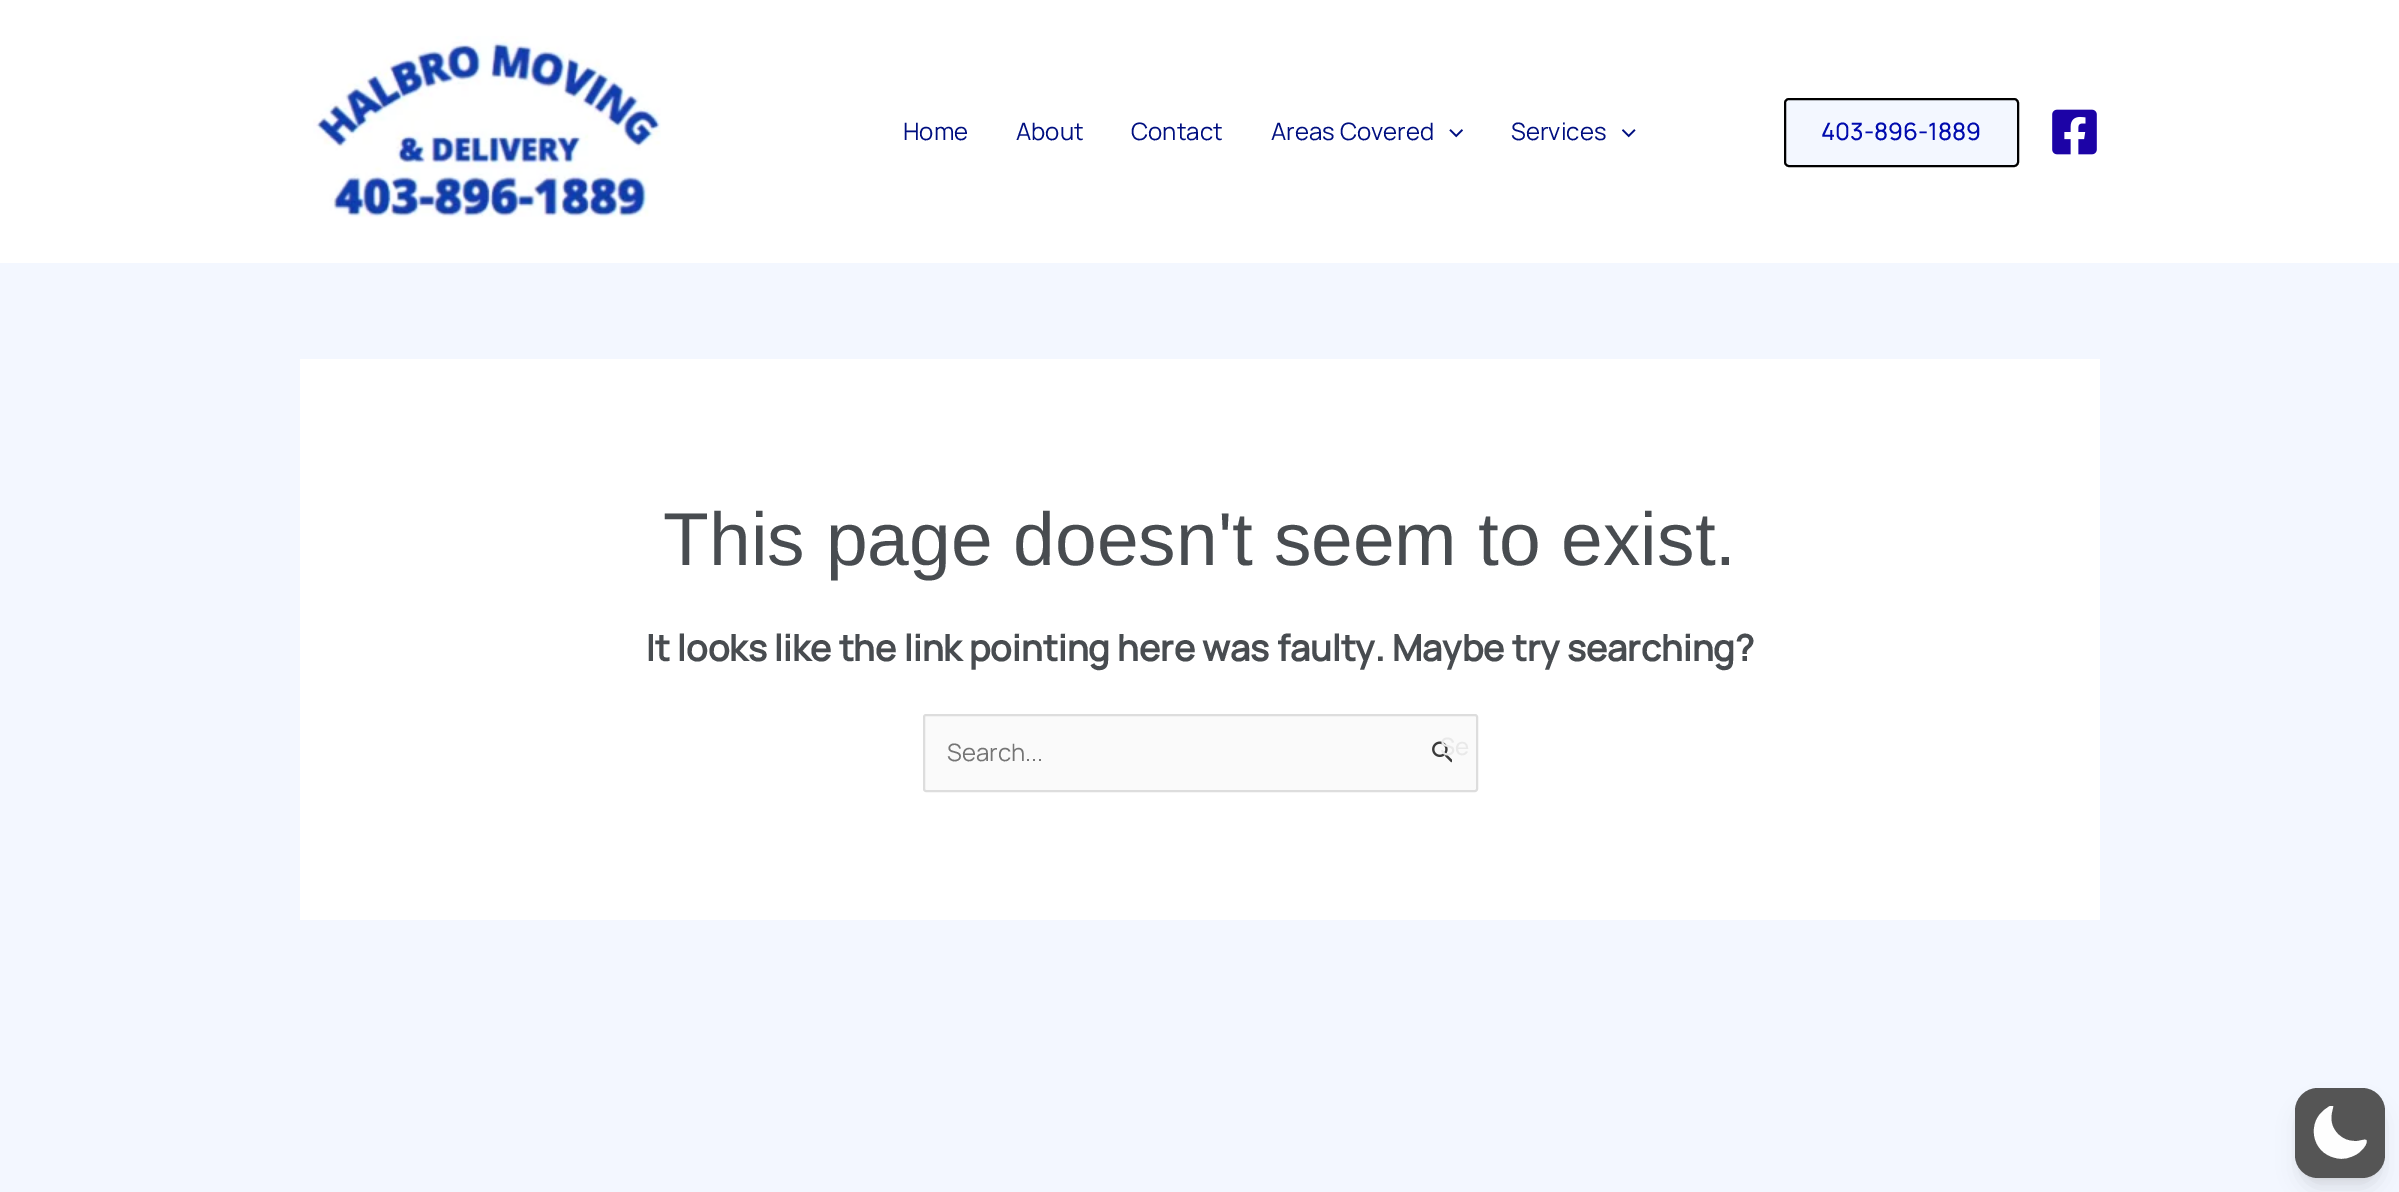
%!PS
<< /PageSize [2399 1192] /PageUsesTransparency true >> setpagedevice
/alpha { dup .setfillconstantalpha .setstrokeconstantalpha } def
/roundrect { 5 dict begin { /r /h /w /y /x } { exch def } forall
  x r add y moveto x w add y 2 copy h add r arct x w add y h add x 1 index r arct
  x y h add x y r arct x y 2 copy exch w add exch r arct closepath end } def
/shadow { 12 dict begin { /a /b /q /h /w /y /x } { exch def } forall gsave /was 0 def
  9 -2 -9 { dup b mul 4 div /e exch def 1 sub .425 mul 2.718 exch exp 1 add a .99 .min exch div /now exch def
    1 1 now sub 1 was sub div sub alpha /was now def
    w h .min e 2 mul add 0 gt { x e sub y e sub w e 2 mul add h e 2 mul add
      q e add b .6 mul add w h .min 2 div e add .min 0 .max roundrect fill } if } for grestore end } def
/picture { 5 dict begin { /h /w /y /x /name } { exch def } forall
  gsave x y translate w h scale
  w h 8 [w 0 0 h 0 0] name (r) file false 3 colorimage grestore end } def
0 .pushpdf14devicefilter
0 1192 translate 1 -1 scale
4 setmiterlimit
0.953 0.969 1 setrgbcolor
0 0 2399 1192 rectfill
1 setgray
0 0 2399 263 rectfill
(img1.rgb) 313 36 348 181 picture
/Manrope-Regular [24 0 0 -24 0 0] selectfont
0 0.059 0.502 setrgbcolor
903 140 moveto (Home) show
1016 140 moveto (About) show
1131 140 moveto (Contact) show
1271 140 moveto (Areas Covered) show
(img2.rgb) 1449 129 14 9 picture
1511 140 moveto (Services) show
(img3.rgb) 1622 129 14 9 picture
0.953 0.969 1 setrgbcolor
1785 99 233 67 4 roundrect gsave fill grestore
0 setgray
2 setlinewidth
stroke
/Manrope-Medium [24 0 0 -24 0 0] selectfont
0 0.043 0.682 setrgbcolor
1821 140 moveto (403-896-1889) show
(img4.rgb) 2052 109 45 46 picture
1 setgray
300 359 1800 561 rectfill
/LiberationSans-Regular [75 0 0 -75 0 0] selectfont
0.282 0.298 0.314 setrgbcolor
663 565 moveto (This page doesn't seem to exist.) show
/Manrope-Bold [36 0 0 -36 0 0] selectfont
646 661 moveto (It looks like the link pointing here was faulty. Maybe try searching?) show
0.98 setgray
924 715 553 76 2 roundrect gsave fill grestore
0.867 setgray
stroke
/Manrope-Regular [24 0 0 -24 0 0] selectfont
0.459 setgray
947 761 moveto (Search...) show
(img5.rgb) 1432 741 20 22 picture
/Manrope-Medium [24 0 0 -24 0 0] selectfont
0.914 setgray
1440 755 moveto (Se) show
0 setgray
2301 1100 78 78 17 4.5 0.1 shadow
2300 1107 81 81 18 11 0.1 shadow
0.333 setgray
2295 1088 90 90 23 roundrect fill
gsave
2313 1106 54 54 rectclip
0.996 setgray
newpath 2333 1106 moveto 2334 1108 2326 1122 2338 1134 curveto 2343 1139 2348 1141 2355 1141 curveto 2360 1142 2371 1135 2365 1146 curveto 2363 1149 2360 1152 2357 1154 curveto 2350 1158 2343 1160 2336 1158 curveto 2311 1153 2306 1121 2327 1108 curveto 2328 1107 2331 1105 2333 1106 curveto closepath eofill
grestore
.poppdf14devicefilter showpage
